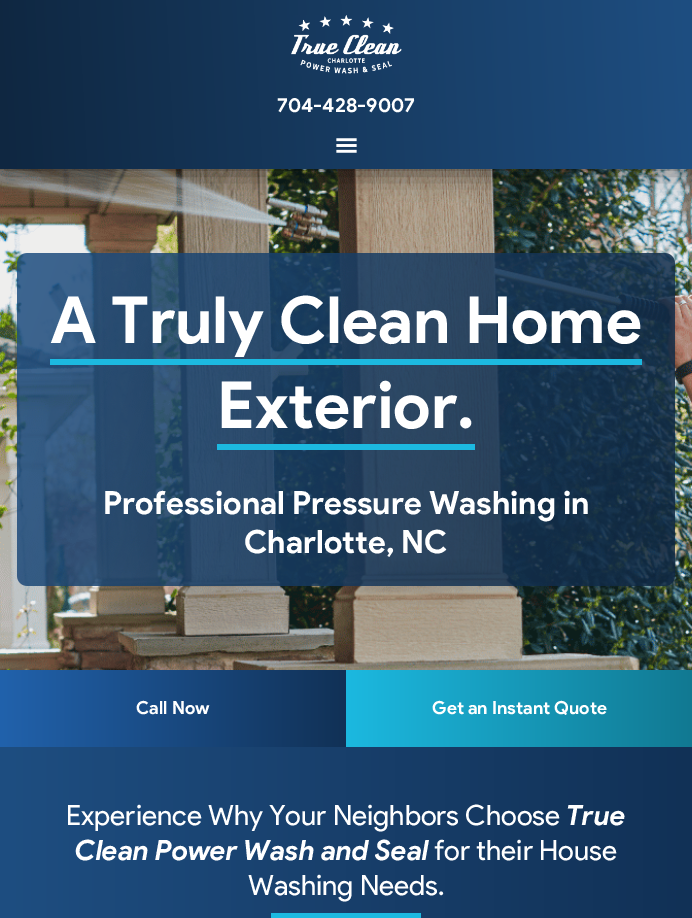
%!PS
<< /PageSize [692 918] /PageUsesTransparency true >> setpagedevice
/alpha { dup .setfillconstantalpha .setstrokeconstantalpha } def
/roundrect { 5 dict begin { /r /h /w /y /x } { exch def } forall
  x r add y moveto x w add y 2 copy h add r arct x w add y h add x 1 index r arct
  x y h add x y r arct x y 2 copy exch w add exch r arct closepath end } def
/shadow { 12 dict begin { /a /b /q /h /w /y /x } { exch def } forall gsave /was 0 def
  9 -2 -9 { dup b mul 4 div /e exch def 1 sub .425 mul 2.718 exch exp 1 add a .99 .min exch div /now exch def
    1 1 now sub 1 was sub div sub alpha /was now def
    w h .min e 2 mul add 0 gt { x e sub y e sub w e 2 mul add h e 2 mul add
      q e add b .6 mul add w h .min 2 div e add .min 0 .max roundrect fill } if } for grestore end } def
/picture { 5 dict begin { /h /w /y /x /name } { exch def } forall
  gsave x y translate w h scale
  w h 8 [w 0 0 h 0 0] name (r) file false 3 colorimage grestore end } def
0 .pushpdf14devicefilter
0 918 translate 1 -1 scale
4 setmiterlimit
1 setgray
0 0 692 918 rectfill
(img3.rgb) 0 169 692 578 picture
0 setgray
0 5 692 169 0 12.5 0.5 shadow
gsave newpath 0 0 moveto 692 0 lineto 692 169 lineto 0 169 lineto closepath clip newpath
<< /ShadingType 2 /ColorSpace /DeviceRGB /Coords [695 66 -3.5 103] /Extend [true true] /Function << /FunctionType 2 /Domain [0 1] /C0 [0.118 0.306 0.506] /C1 [0.059 0.153 0.255] /N 1 >> >> shfill grestore
(img1.rgb) 291 15 111 59 picture
/ProductSans-Bold [20 0 0 -20 0 0] selectfont
1 setgray
277 112 moveto (704-428-9007) show
(img2.rgb) 336 138 21 15 picture
/ProductSans-Bold [65 0 0 -65 0 0] selectfont
50 343 moveto (A Truly Clean Home) show
0.11 0.725 0.878 setrgbcolor
50 359 592 6 rectfill
1 setgray
217 428 moveto (Exterior.) show
0.11 0.725 0.878 setrgbcolor
217 444 258 6 rectfill
/ProductSans-Bold [32 0 0 -32 0 0] selectfont
1 setgray
103 514 moveto (Professional Pressure Washing in) show
244 553 moveto (Charlotte, NC) show
gsave 0 670 346 77 3 roundrect clip newpath
<< /ShadingType 2 /ColorSpace /DeviceRGB /Coords [0 709 346 709] /Extend [true true] /Function << /FunctionType 2 /Domain [0 1] /C0 [0.129 0.384 0.675] /C1 [0.067 0.192 0.337] /N 1 >> >> shfill grestore
/ProductSans-Bold [18 0 0 -18 0 0] selectfont
136 714 moveto (Call Now) show
gsave 346 670 346 77 3 roundrect clip newpath
<< /ShadingType 2 /ColorSpace /DeviceRGB /Coords [346 709 692 709] /Extend [true true] /Function << /FunctionType 2 /Domain [0 1] /C0 [0.11 0.725 0.878] /C1 [0.067 0.475 0.573] /N 1 >> >> shfill grestore
432 714 moveto (Get an Instant Quote) show
gsave newpath 0 747 moveto 692 747 lineto 692 918 lineto 0 918 lineto closepath clip newpath
<< /ShadingType 2 /ColorSpace /DeviceRGB /Coords [0 859 692 859] /Extend [true true] /Function << /FunctionType 2 /Domain [0 1] /C0 [0.118 0.306 0.506] /C1 [0.067 0.192 0.337] /N 1 >> >> shfill grestore
/ProductSans-Regular [28 0 0 -28 0 0] selectfont
66 825 moveto (Experience Why Your Neighbors Choose) show
/ProductSans-BoldItalic [28 0 0 -28 0 0] selectfont
566 825 moveto (True) show
75 860 moveto (Clean Power Wash and Seal) show
/ProductSans-Regular [28 0 0 -28 0 0] selectfont
434 860 moveto (for their House) show
248 895 moveto (Washing Needs.) show
0.11 0.725 0.878 setrgbcolor
271 913 150 5 rectfill
.poppdf14devicefilter showpage
